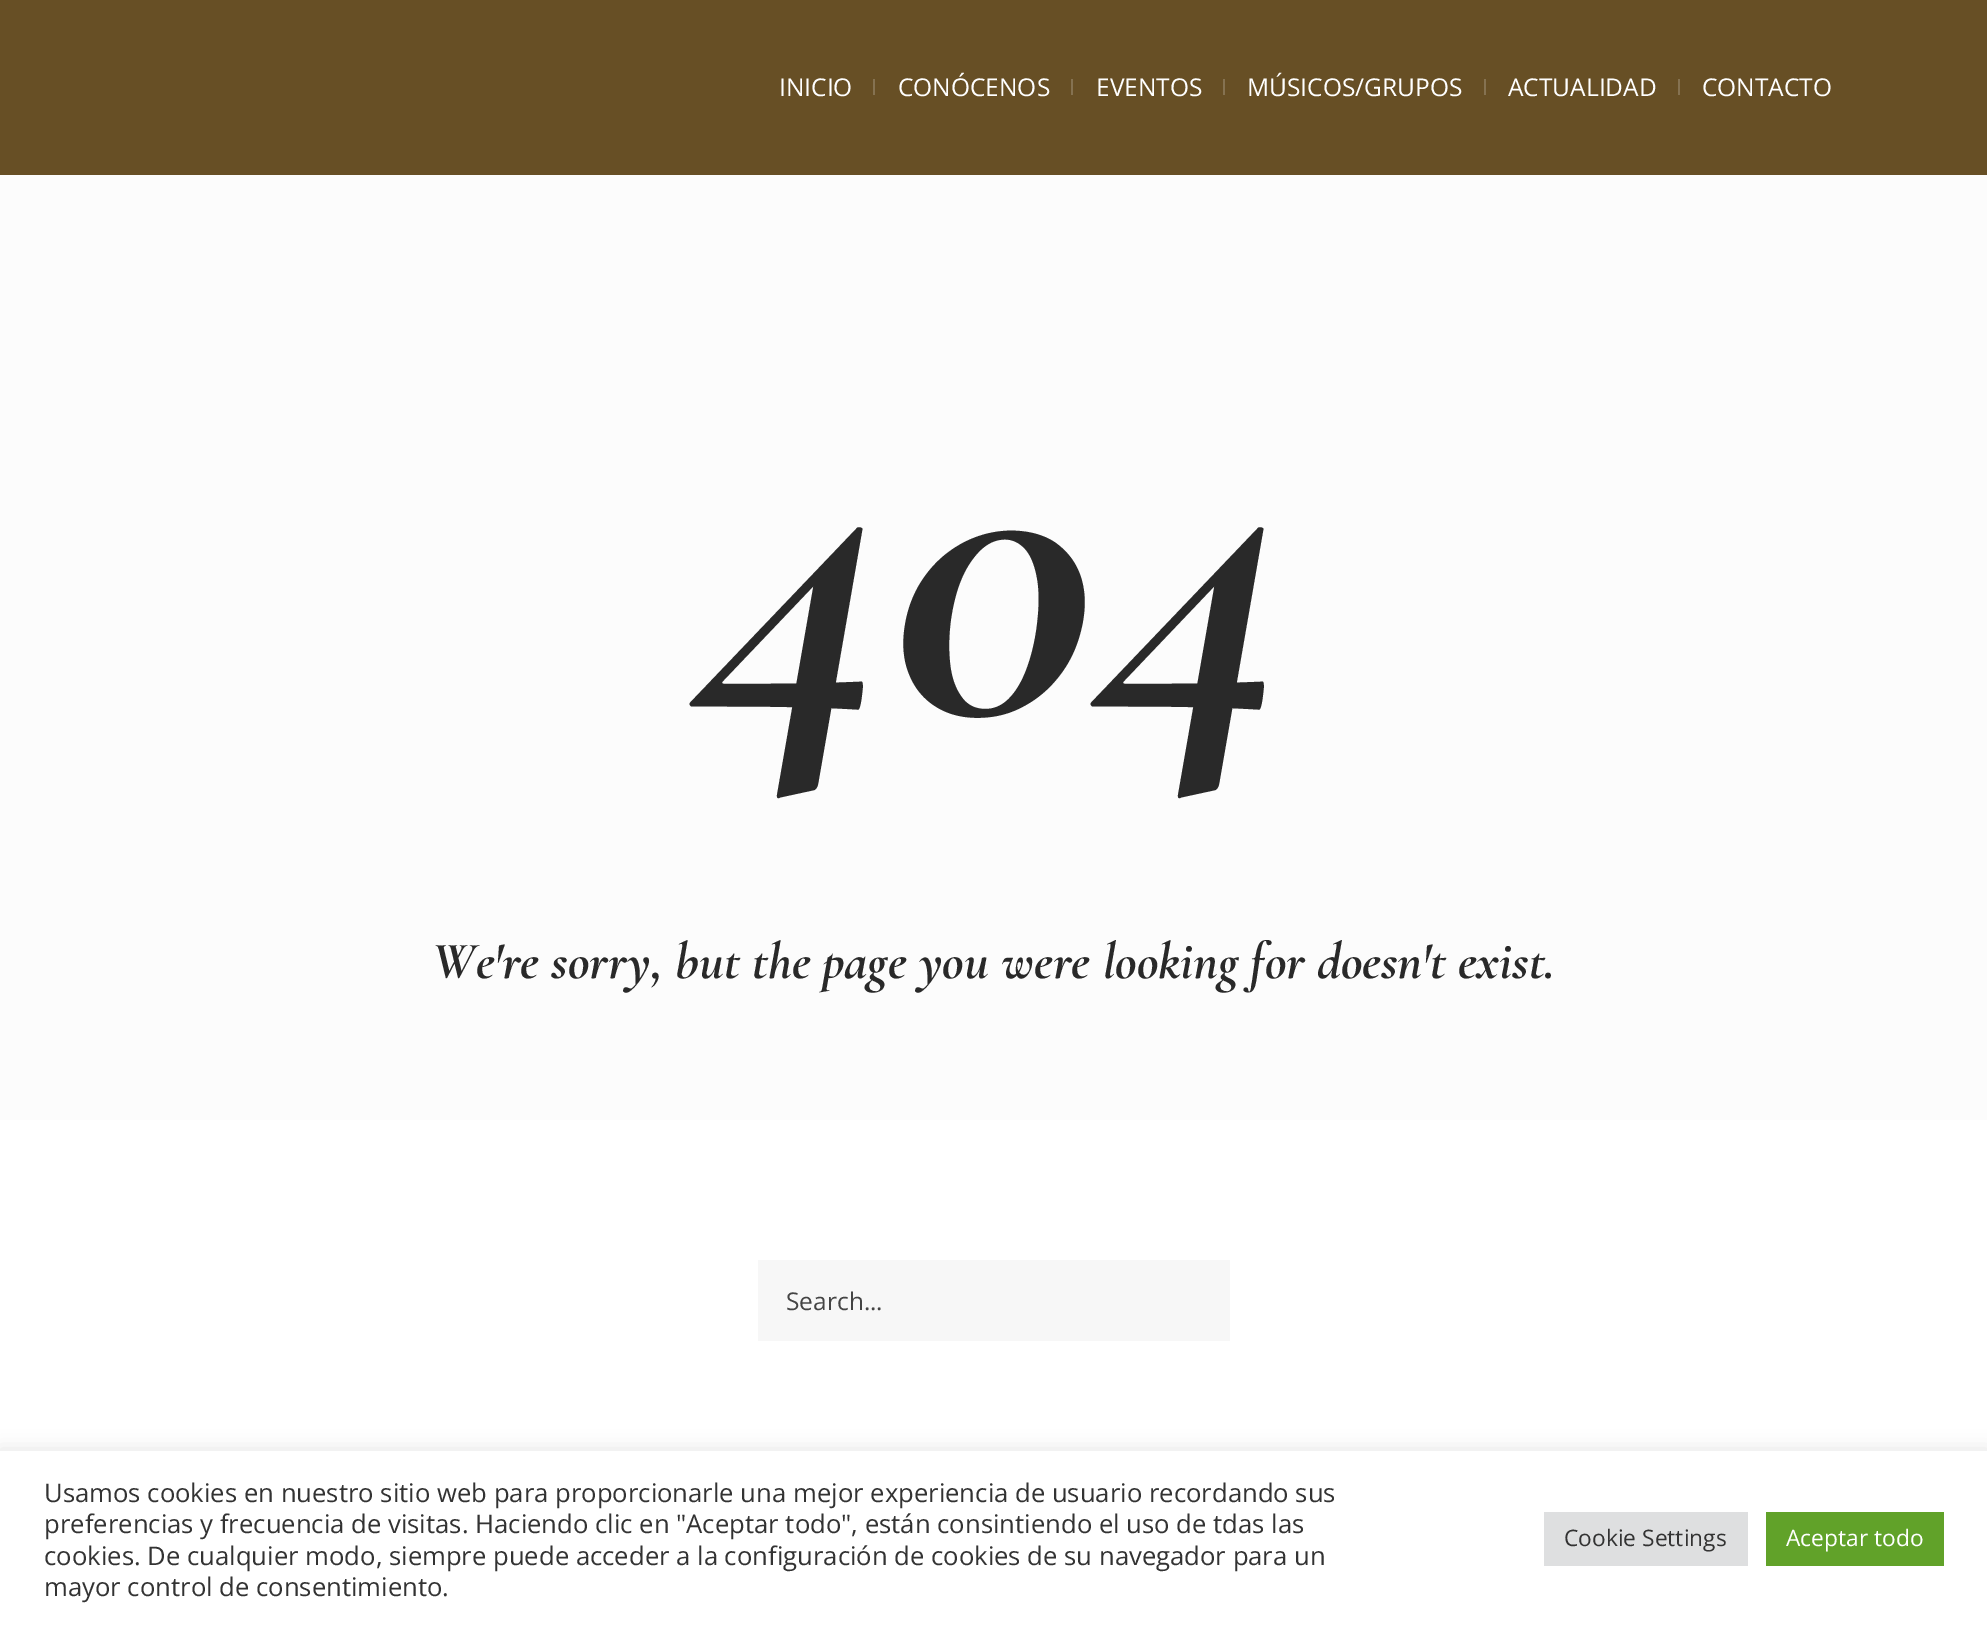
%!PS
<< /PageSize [1987 1625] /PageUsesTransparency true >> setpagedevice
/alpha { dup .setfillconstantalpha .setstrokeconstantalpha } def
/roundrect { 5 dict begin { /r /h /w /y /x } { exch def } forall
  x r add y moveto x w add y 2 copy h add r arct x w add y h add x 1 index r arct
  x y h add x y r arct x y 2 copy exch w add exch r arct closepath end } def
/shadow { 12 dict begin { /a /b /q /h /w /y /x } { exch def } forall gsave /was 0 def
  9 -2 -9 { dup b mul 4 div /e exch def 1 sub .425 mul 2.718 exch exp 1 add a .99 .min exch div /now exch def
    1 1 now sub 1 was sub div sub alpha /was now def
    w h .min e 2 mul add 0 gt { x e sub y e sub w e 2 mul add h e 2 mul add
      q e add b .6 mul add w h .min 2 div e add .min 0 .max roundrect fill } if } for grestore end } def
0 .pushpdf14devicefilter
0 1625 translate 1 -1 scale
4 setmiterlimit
1 setgray
0 0 1987 1625 rectfill
0.404 0.31 0.145 setrgbcolor
0 0 1987 175 rectfill
/OpenSans-Regular [24.5 0 0 -24.5 0 0] selectfont
1 setgray
779 96 moveto (INICIO) show
0.522 0.447 0.318 setrgbcolor
873 79 2 16 rectfill
1 setgray
898 96 moveto (CONÓCENOS) show
0.522 0.447 0.318 setrgbcolor
1071 79 2 16 rectfill
1 setgray
1096 96 moveto (EVENTOS) show
0.522 0.447 0.318 setrgbcolor
1223 79 2 16 rectfill
1 setgray
1247 96 moveto (MÚSICOS/GRUPOS) show
0.522 0.447 0.318 setrgbcolor
1484 79 2 16 rectfill
1 setgray
1508 96 moveto (ACTUALIDAD) show
0.522 0.447 0.318 setrgbcolor
1678 79 2 16 rectfill
1 setgray
1702 96 moveto (CONTACTO) show
0.988 setgray
0 175 1987 945 rectfill
/CormorantGaramond-LightItalic [455 0 0 -455 0 0] selectfont
0.161 setgray
695 712 moveto (404) show
/CormorantGaramond-LightItalic [52.5 0 0 -52.5 0 0] selectfont
432 978 moveto (We're sorry, but the page you were looking for doesn't exist.) show
0.969 setgray
758 1260 472 81 rectfill
/OpenSans-Regular [24.5 0 0 -24.5 0 0] selectfont
0.267 setgray
786 1310 moveto (Search...) show
0.675 0.671 0.671 setrgbcolor
0 1449 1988 175 0 9 0.3 shadow
1 setgray
0 1451 1987 174 rectfill
/OpenSans-Regular [25.67 0 0 -25.67 0 0] selectfont
0.2 setgray
44 1502 moveto (Usamos cookies en nuestro sitio web para proporcionarle una mejor experiencia de usuario recordando sus) show
44 1533 moveto (preferencias y frecuencia de visitas. Haciendo clic en "Aceptar todo", están consintiendo el uso de tdas las) show
44 1565 moveto (cookies. De cualquier modo, siempre puede acceder a la configuración de cookies de su navegador para un) show
44 1596 moveto (mayor control de consentimiento.) show
0.871 0.875 0.878 setrgbcolor
1544 1512 204 54 rectfill
/OpenSans-Regular [22.75 0 0 -22.75 0 0] selectfont
0.2 setgray
1564 1546 moveto (Cookie Settings) show
0.38 0.635 0.161 setrgbcolor
1766 1512 178 54 rectfill
1 setgray
1786 1546 moveto (Aceptar todo) show
.poppdf14devicefilter showpage
